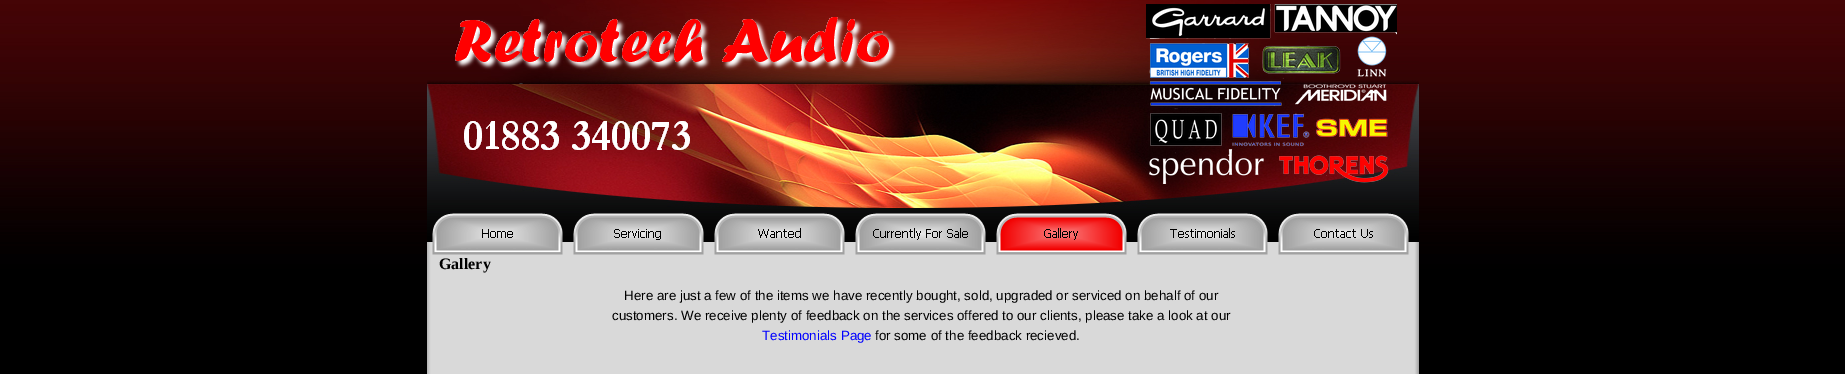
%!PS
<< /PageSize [1845 374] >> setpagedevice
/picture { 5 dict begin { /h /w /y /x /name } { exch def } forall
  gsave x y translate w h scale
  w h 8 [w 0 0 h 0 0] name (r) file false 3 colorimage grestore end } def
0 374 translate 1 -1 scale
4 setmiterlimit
1 setgray
0 0 1845 374 rectfill
(img1.rgb) 0 0 1845 374 picture
(img2.rgb) 427 0 992 208 picture
(img3.rgb) 427 208 992 34 picture
(img11.rgb) 427 242 992 132 picture
(img4.rgb) 432 213 131 42 picture
(img5.rgb) 573 213 131 42 picture
(img6.rgb) 714 213 131 42 picture
(img7.rgb) 855 213 131 42 picture
(img8.rgb) 996 213 131 42 picture
(img9.rgb) 1137 213 131 42 picture
(img10.rgb) 1278 213 131 42 picture
/LiberationSerif-Bold [16 0 0 -16 0 0] selectfont
0 setgray
439 269 moveto (Gallery) show
/LiberationSans-Regular [13.35 0 0 -13.35 0 0] selectfont
624 300 moveto (Here are just a few of the items we have recently bought, sold, upgraded or serviced on behalf of our) show
612 320 moveto (customers. We receive plenty of feedback on the services offered to our clients, please take a look at our) show
0 0 1 setrgbcolor
762 340 moveto (Testimonials Page) show
0 setgray
875 340 moveto (for some of the feedback recieved.) show
showpage
